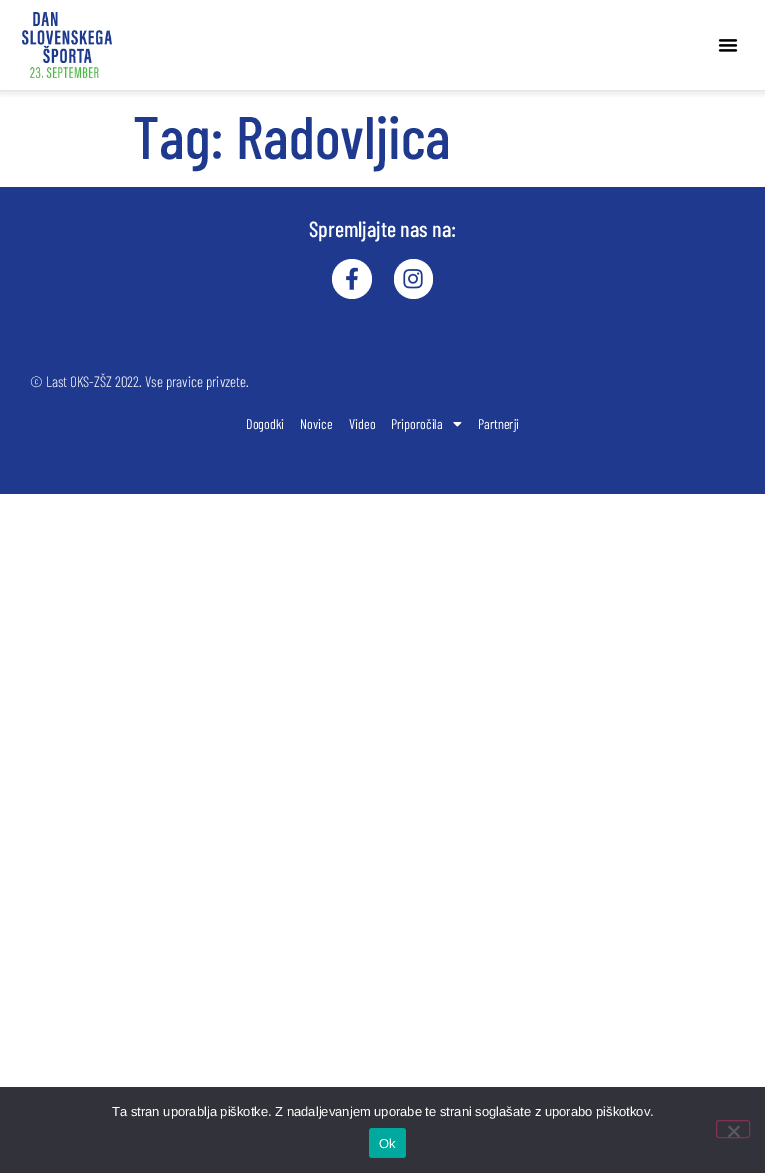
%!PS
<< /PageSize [765 1173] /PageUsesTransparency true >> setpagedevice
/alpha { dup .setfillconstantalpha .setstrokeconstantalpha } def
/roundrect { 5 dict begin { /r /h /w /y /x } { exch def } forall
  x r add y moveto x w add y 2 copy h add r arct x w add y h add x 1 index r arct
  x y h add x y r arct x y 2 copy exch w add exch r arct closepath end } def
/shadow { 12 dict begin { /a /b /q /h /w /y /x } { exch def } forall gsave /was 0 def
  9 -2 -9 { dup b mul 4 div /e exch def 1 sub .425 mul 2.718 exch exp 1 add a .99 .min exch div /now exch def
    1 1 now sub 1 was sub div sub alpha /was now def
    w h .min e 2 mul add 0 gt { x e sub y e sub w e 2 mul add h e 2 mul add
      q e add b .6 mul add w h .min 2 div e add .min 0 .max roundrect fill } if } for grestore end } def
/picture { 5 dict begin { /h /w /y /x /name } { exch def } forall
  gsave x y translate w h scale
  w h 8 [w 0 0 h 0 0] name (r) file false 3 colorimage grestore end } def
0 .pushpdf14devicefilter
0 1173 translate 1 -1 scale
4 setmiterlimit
1 setgray
0 0 765 1173 rectfill
gsave
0 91 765 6 rectclip
0 setgray
0 0 765 91 0 5 0.15 shadow
grestore
0.906 setgray
0 90 765 1 rectfill
(img1.rgb) 22 12 90 66 picture
(img2.rgb) 718 39 20 13 picture
/BarlowCondensed-Medium [60 0 0 -60 0 0] selectfont
0.118 0.224 0.553 setrgbcolor
133 159 moveto (Tag: Radovljica) show
0 187 765 307 rectfill
/BarlowCondensed-Medium [22 0 0 -22 0 0] selectfont
1 setgray
309 237 moveto (Spremljajte nas na:) show
newpath 352 279 20 0 360 arc closepath fill
(img3.rgb) 346 267 12 23 picture
394 259 39 40 19.5 roundrect fill
(img4.rgb) 403 269 20 20 picture
/BarlowCondensed-Light [15 0 0 -15 0 0] selectfont
30 387 moveto (© Last OKS-ZŠZ 2022. Vse pravice privzete.) show
/BarlowCondensed-Regular [14 0 0 -14 0 0] selectfont
246 429 moveto (Dogodki) show
300 429 moveto (Novice) show
349 429 moveto (Video) show
391 429 moveto (Priporočila) show
(img5.rgb) 453 422 9 5 picture
478 429 moveto (Partnerji) show
0.196 0.196 0.227 setrgbcolor
0 1087 765 86 rectfill
/LiberationSans-Regular [13 0 0 -13 0 0] selectfont
1 setgray
112 1116 moveto (Ta stran uporablja piškotke. Z nadaljevanjem uporabe te strani soglašate z uporabo piškotkov.) show
0.498 0.2 0.314 setrgbcolor
716.5 1120.5 33 17 2.5 roundrect stroke
0.349 0.349 0.365 setrgbcolor
newpath 738.5 1125.5 moveto 740 1127 lineto 729.5 1137.5 lineto 728 1136 lineto closepath fill
newpath 728 1127 moveto 729.5 1125.5 lineto 740 1136 lineto 738.5 1137.5 lineto closepath fill
0 0.663 0.616 setrgbcolor
369 1128 37 30 3 roundrect fill
1 setgray
379 1148 moveto (Ok) show
.poppdf14devicefilter showpage
